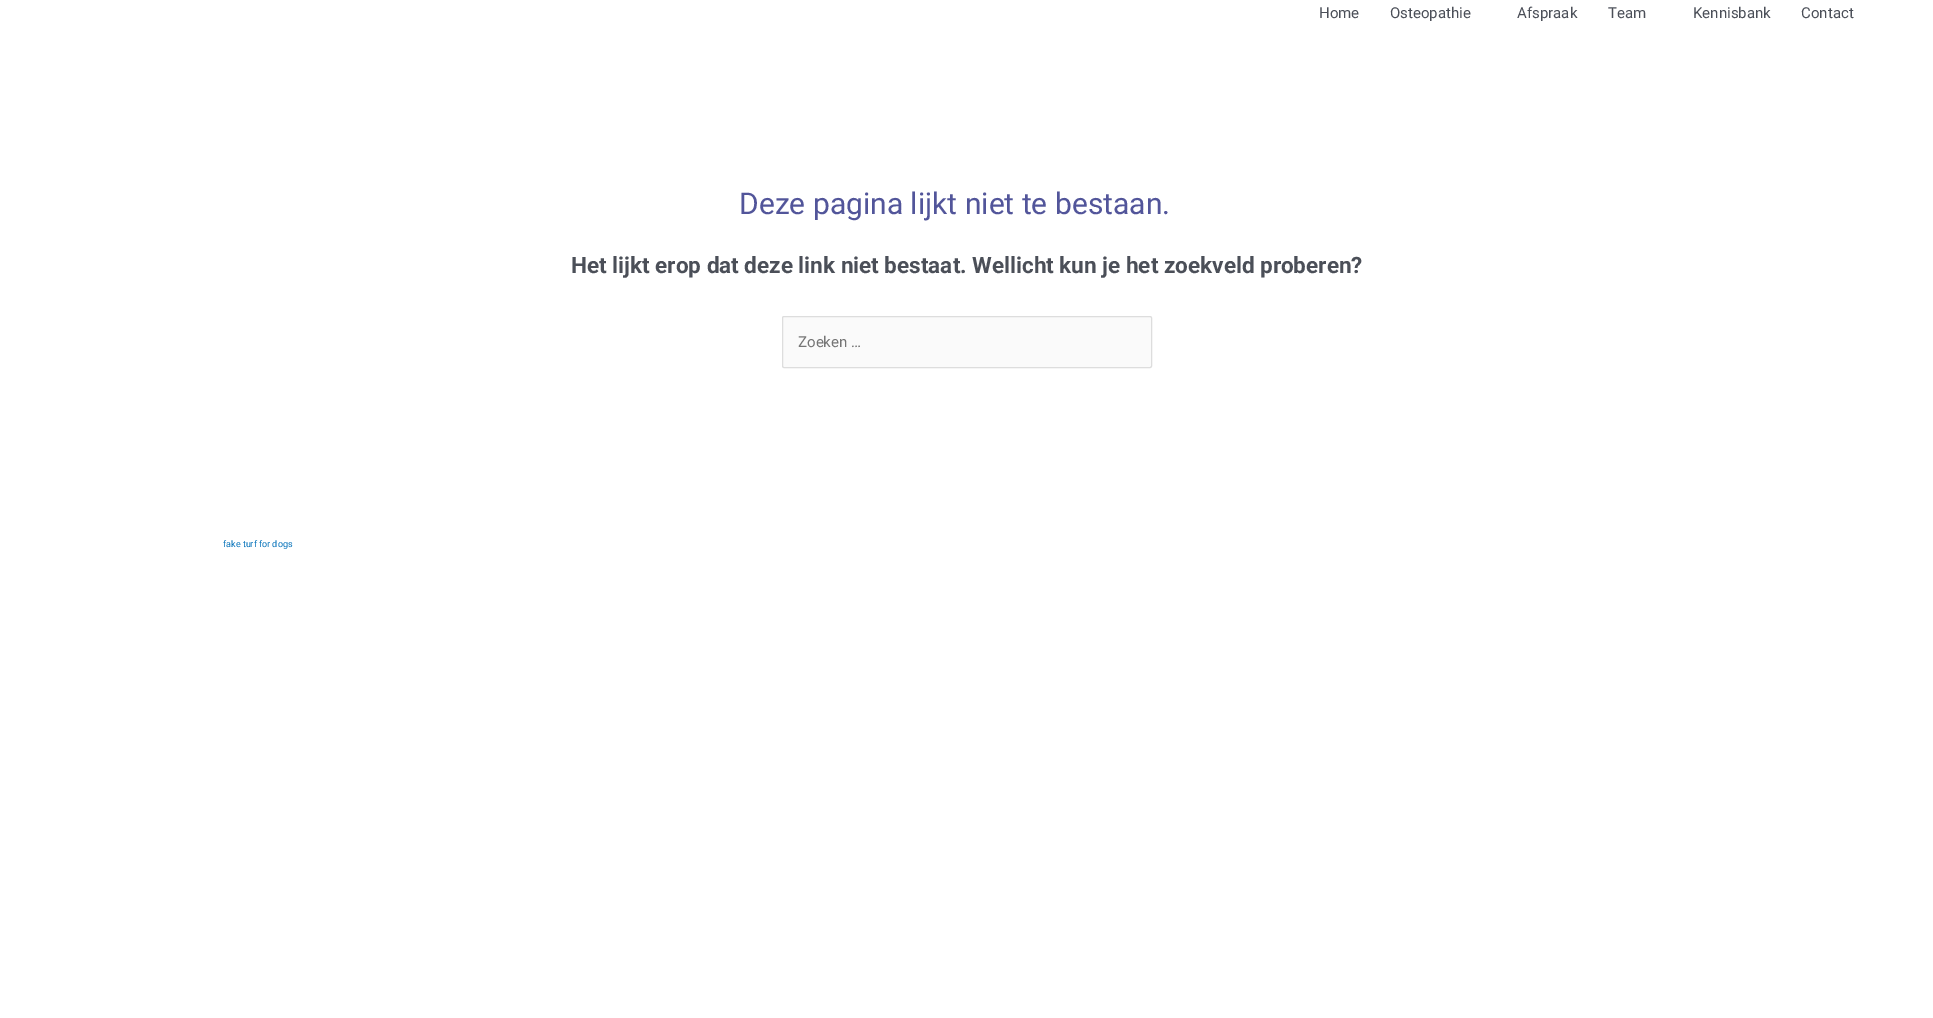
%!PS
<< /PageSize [1933 1018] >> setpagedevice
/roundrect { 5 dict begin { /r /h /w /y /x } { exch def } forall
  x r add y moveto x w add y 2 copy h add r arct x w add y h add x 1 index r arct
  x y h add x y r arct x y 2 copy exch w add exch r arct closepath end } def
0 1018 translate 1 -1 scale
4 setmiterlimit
1 setgray
0 0 1933 1018 rectfill
/Roboto-Regular [15 0 0 -15 0 0] selectfont
0.294 0.31 0.345 setrgbcolor
1319 18 moveto (Home) show
1390 18 moveto (Osteopathie) show
1517 18 moveto (Afspraak) show
1608 18 moveto (Team) show
1693 18 moveto (Kennisbank) show
1801 18 moveto (Contact) show
/Roboto-Regular [30 0 0 -30 0 0] selectfont
0.322 0.333 0.604 setrgbcolor
739 214 moveto (Deze pagina lijkt niet te bestaan.) show
/Roboto-Bold [22.5 0 0 -22.5 0 0] selectfont
0.294 0.31 0.345 setrgbcolor
571 273 moveto (Het lijkt erop dat deze link niet bestaat. Wellicht kun je het zoekveld proberen?) show
0.98 setgray
782.5 316.5 369 51 1.5 roundrect gsave fill grestore
0.867 setgray
stroke
/Roboto-Regular [15 0 0 -15 0 0] selectfont
0.459 setgray
798 347 moveto (Zoeken …) show
/Roboto-Regular [9 0 0 -9 0 0] selectfont
0.004 0.439 0.725 setrgbcolor
223 547 moveto (fake turf for dogs) show
showpage
